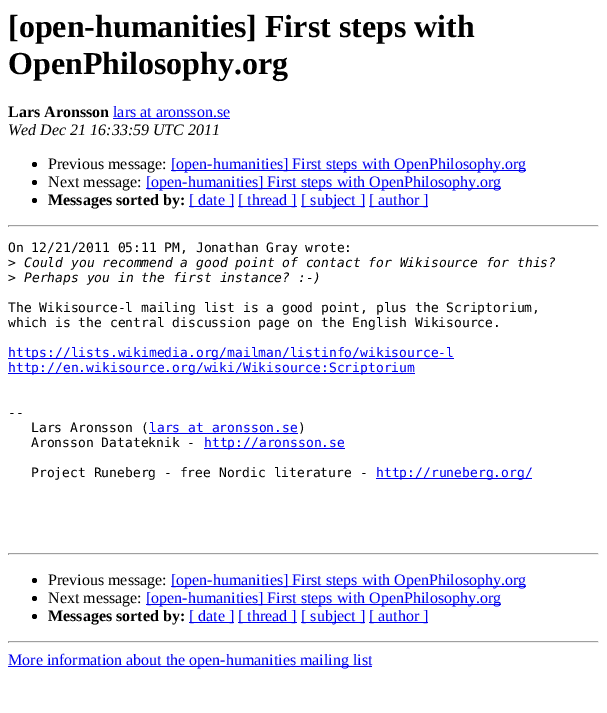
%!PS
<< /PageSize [607 713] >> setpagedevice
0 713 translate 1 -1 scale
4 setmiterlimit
1 setgray
0 0 607 713 rectfill
/LiberationSerif-Bold [32 0 0 -32 0 0] selectfont
0 setgray
8 37 moveto ([open-humanities] First steps with) show
8 74 moveto (OpenPhilosophy.org) show
/LiberationSerif-Bold [16 0 0 -16 0 0] selectfont
8 117 moveto (Lars Aronsson) show
/LiberationSerif-Regular [16 0 0 -16 0 0] selectfont
0 0 0.933 setrgbcolor
113 117 moveto (lars at aronsson.se) show
113 118 117 1 rectfill
/LiberationSerif-Italic [16 0 0 -16 0 0] selectfont
0 setgray
8 135 moveto (Wed Dec 21 16:33:59 UTC 2011) show
newpath 34.5 164.5 2.5 0 360 arc closepath fill
/LiberationSerif-Regular [16 0 0 -16 0 0] selectfont
48 169 moveto (Previous message:) show
0 0 0.933 setrgbcolor
171 170 355 1 rectfill
171 169 moveto ([open-humanities] First steps with OpenPhilosophy.org) show
0 setgray
newpath 34.5 182.5 2.5 0 360 arc closepath fill
48 187 moveto (Next message:) show
0 0 0.933 setrgbcolor
146 188 355 1 rectfill
146 187 moveto ([open-humanities] First steps with OpenPhilosophy.org) show
0 setgray
newpath 34.5 200.5 2.5 0 360 arc closepath fill
/LiberationSerif-Bold [16 0 0 -16 0 0] selectfont
48 205 moveto (Messages sorted by:) show
0 0 0.933 setrgbcolor
189 206 45 1 rectfill
/LiberationSerif-Regular [16 0 0 -16 0 0] selectfont
189 205 moveto ([ date ]) show
238 206 59 1 rectfill
238 205 moveto ([ thread ]) show
301 206 64 1 rectfill
301 205 moveto ([ subject ]) show
369 206 59 1 rectfill
369 205 moveto ([ author ]) show
0.624 setgray
8 225 591 1 rectfill
0.933 setgray
598 225 1 2 rectfill
8 226 591 1 rectfill
0.624 setgray
8 225 1 2 rectfill
/DejaVuSansMono-Regular [13 0 0 -13 0 0] selectfont
0 setgray
8 252 moveto (On 12/21/2011 05:11 PM, Jonathan Gray wrote:) show
8 267 moveto (>) show
/DejaVuSansMono-Italic [13 0 0 -13 0 0] selectfont
24 267 moveto (Could you recommend a good point of contact for Wikisource for this?) show
/DejaVuSansMono-Regular [13 0 0 -13 0 0] selectfont
8 282 moveto (>) show
/DejaVuSansMono-Italic [13 0 0 -13 0 0] selectfont
24 282 moveto (Perhaps you in the first instance? :-\)) show
/DejaVuSansMono-Regular [13 0 0 -13 0 0] selectfont
8 312 moveto (The Wikisource-l mailing list is a good point, plus the Scriptorium,) show
8 327 moveto (which is the central discussion page on the English Wikisource.) show
0 0 0.933 setrgbcolor
8 358 446 1 rectfill
8 357 moveto (https://lists.wikimedia.org/mailman/listinfo/wikisource-l) show
8 373 407 1 rectfill
8 372 moveto (http://en.wikisource.org/wiki/Wikisource:Scriptorium) show
0 setgray
8 417 moveto (--) show
31 432 moveto (Lars Aronsson \() show
0 0 0.933 setrgbcolor
149 432 moveto (lars at aronsson.se) show
149 433 149 1 rectfill
0 setgray
298 432 moveto (\)) show
31 447 moveto (Aronsson Datateknik -) show
0 0 0.933 setrgbcolor
204 448 141 1 rectfill
204 447 moveto (http://aronsson.se) show
0 setgray
31 477 moveto (Project Runeberg - free Nordic literature -) show
0 0 0.933 setrgbcolor
376 478 156 1 rectfill
376 477 moveto (http://runeberg.org/) show
0.624 setgray
8 553 591 1 rectfill
0.933 setgray
598 553 1 2 rectfill
8 554 591 1 rectfill
0.624 setgray
8 553 1 2 rectfill
0 setgray
newpath 34.5 580.5 2.5 0 360 arc closepath fill
/LiberationSerif-Regular [16 0 0 -16 0 0] selectfont
48 585 moveto (Previous message:) show
0 0 0.933 setrgbcolor
171 586 355 1 rectfill
171 585 moveto ([open-humanities] First steps with OpenPhilosophy.org) show
0 setgray
newpath 34.5 598.5 2.5 0 360 arc closepath fill
48 603 moveto (Next message:) show
0 0 0.933 setrgbcolor
146 604 355 1 rectfill
146 603 moveto ([open-humanities] First steps with OpenPhilosophy.org) show
0 setgray
newpath 34.5 616.5 2.5 0 360 arc closepath fill
/LiberationSerif-Bold [16 0 0 -16 0 0] selectfont
48 621 moveto (Messages sorted by:) show
0 0 0.933 setrgbcolor
189 622 45 1 rectfill
/LiberationSerif-Regular [16 0 0 -16 0 0] selectfont
189 621 moveto ([ date ]) show
238 622 59 1 rectfill
238 621 moveto ([ thread ]) show
301 622 64 1 rectfill
301 621 moveto ([ subject ]) show
369 622 59 1 rectfill
369 621 moveto ([ author ]) show
0.624 setgray
8 641 591 1 rectfill
0.933 setgray
598 641 1 2 rectfill
8 642 591 1 rectfill
0.624 setgray
8 641 1 2 rectfill
0 0 0.933 setrgbcolor
8 666 364 1 rectfill
8 665 moveto (More information about the open-humanities mailing list) show
showpage
